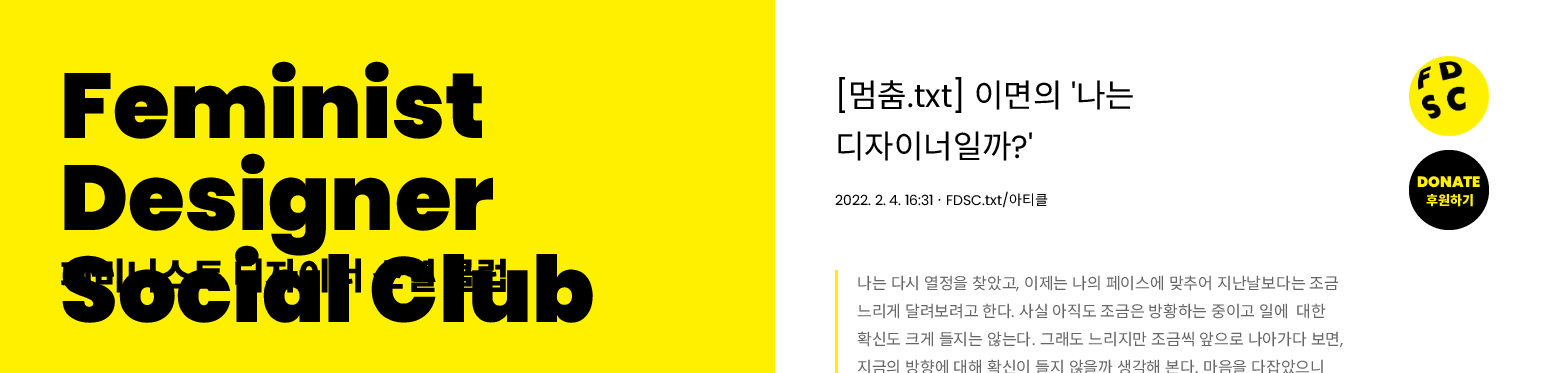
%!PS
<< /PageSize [1549 373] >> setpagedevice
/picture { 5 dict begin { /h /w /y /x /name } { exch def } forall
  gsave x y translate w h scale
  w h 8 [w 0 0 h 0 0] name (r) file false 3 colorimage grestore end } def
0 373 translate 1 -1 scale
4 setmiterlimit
1 setgray
0 0 1549 373 rectfill
1 0.941 0 setrgbcolor
0 0 775 373 rectfill
/Poppins-Black [92 0 0 -92 0 0] selectfont
0 setgray
60 138 moveto (Feminist) show
60 230 moveto (Designer) show
/NotoSansKR-Black [36 0 0 -36 0 0] selectfont
60 289 moveto -2 0 32 (페미니스트 디자이너 소셜 클럽) widthshow
/Poppins-Black [92 0 0 -92 0 0] selectfont
60 322 moveto (Social Club) show
(img1.rgb) 1409 56 80 80 picture
newpath 1449 190 40 0 360 arc closepath fill
/Poppins-Black [15 0 0 -15 0 0] selectfont
1 0.941 0 setrgbcolor
1417 187 moveto (DONATE) show
/NotoSansKR-Black [13 0 0 -13 0 0] selectfont
1426 205 moveto (후원하기) show
/Poppins-Regular [32 0 0 -32 0 0] selectfont
0 setgray
835 107 moveto ([) show
/NotoSansKR-Regular [32 0 0 -32 0 0] selectfont
848 107 moveto (멈춤) show
/Poppins-Regular [32 0 0 -32 0 0] selectfont
907 107 moveto (.txt]) show
/NotoSansKR-Regular [32 0 0 -32 0 0] selectfont
974 107 moveto (이면의) show
/Poppins-Regular [32 0 0 -32 0 0] selectfont
1071 107 moveto (') show
/NotoSansKR-Regular [32 0 0 -32 0 0] selectfont
1076 107 moveto (나는) show
835 158 moveto (디자이너일까) show
/Poppins-Regular [32 0 0 -32 0 0] selectfont
1011 158 moveto (?') show
/Poppins-Regular [14 0 0 -14 0 0] selectfont
835 205 moveto (2022. 2. 4. 16:31) show
/NotoSansKR-Regular [14 0 0 -14 0 0] selectfont
933 205 moveto (ㆍ) show
/Poppins-Regular [14 0 0 -14 0 0] selectfont
946 205 moveto (FDSC.txt/) show
/NotoSansKR-Regular [14 0 0 -14 0 0] selectfont
1009 205 moveto (아티클) show
1 0.941 0 setrgbcolor
835 270 3 103 rectfill
/NotoSansKR-Regular [16 0 0 -16 0 0] selectfont
0.4 setgray
857 289 moveto 0.5 0 32 (나는 다시 열정을 찾았고) widthshow
/Poppins-Regular [16 0 0 -16 0 0] selectfont
1016 289 moveto (,) show
/NotoSansKR-Regular [16 0 0 -16 0 0] selectfont
1024 289 moveto 0.5 0 32 (이제는 나의 페이스에 맞추어 지난날보다는 조금) widthshow
857 317 moveto 0.25 0 32 (느리게 달려보려고 한다) widthshow
/Poppins-Regular [16 0 0 -16 0 0] selectfont
1011 317 moveto (.) show
/NotoSansKR-Regular [16 0 0 -16 0 0] selectfont
1019 317 moveto 0.25 0 32 (사실 아직도 조금은 방황하는 중이고 일에) widthshow
1296 317 moveto 0.25 0 32 (대한) widthshow
857 345 moveto 0.5 0 32 (확신도 크게 들지는 않는다) widthshow
/Poppins-Regular [16 0 0 -16 0 0] selectfont
1032 345 moveto (.) show
/NotoSansKR-Regular [16 0 0 -16 0 0] selectfont
1040 345 moveto 0.5 0 32 (그래도 느리지만 조금씩 앞으로 나아가다 보면) widthshow
/Poppins-Regular [16 0 0 -16 0 0] selectfont
1340 345 moveto (,) show
/NotoSansKR-Regular [16 0 0 -16 0 0] selectfont
857 373 moveto 0.5 0 32 (지금의 방향에 대해 확신이 들지 않을까 생각해 본다) widthshow
/Poppins-Regular [16 0 0 -16 0 0] selectfont
1195 373 moveto (.) show
/NotoSansKR-Regular [16 0 0 -16 0 0] selectfont
1203 373 moveto 0.5 0 32 (마음을 다잡았으니) widthshow
showpage
